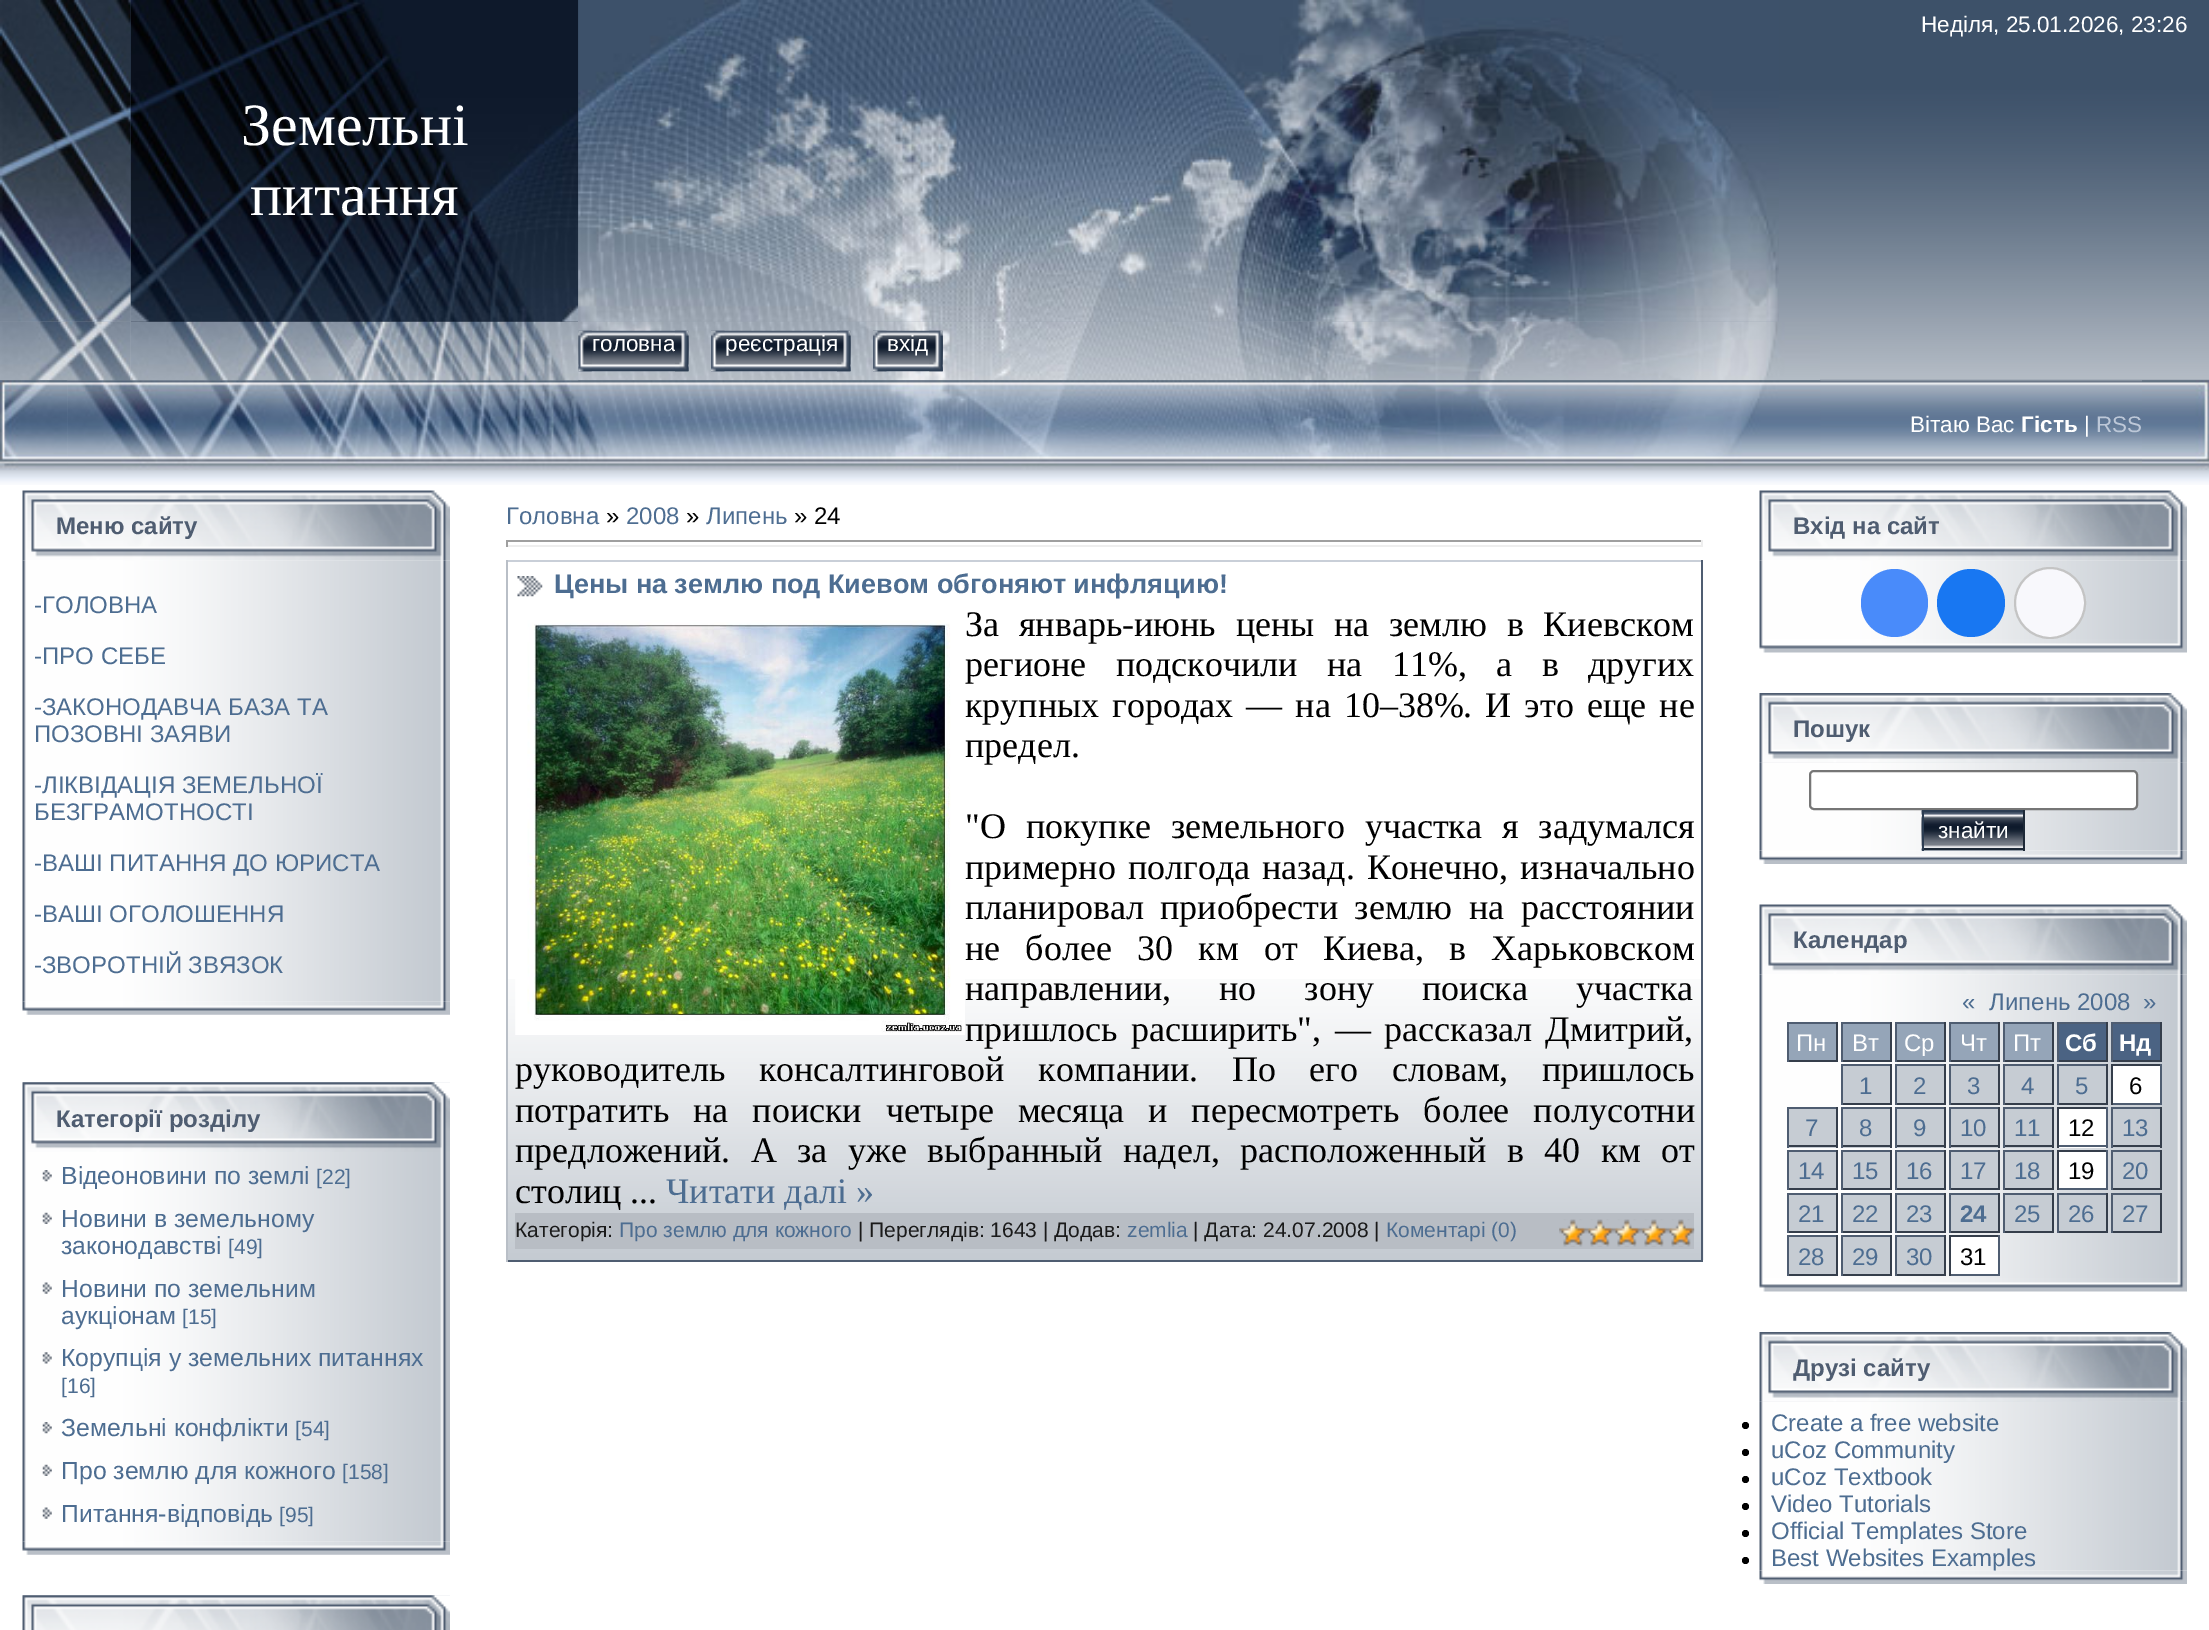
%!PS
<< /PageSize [2209 1630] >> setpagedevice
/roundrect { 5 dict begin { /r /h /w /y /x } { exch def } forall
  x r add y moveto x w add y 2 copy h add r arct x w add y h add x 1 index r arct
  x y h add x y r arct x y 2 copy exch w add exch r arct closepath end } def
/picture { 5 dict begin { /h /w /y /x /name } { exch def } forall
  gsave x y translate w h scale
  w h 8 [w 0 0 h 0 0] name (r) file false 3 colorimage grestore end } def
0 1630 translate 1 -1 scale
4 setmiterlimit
1 setgray
0 0 2209 1630 rectfill
(img1.rgb) 0 0 2209 485 picture
(img4.rgb) 130 0 449 322 picture
(img2.rgb) 0 0 131 322 picture
(img3.rgb) 578 0 1201 322 picture
/LiberationSans-Regular [22.5 0 0 -22.5 0 0] selectfont
1921 32 moveto (Неділя, 25.01.2026, 23:26) show
/LiberationSerif-Regular [60 0 0 -60 0 0] selectfont
241 145 moveto (Земельні) show
250 215 moveto (питання) show
(img7.rgb) 578 321 1242 60 picture
(img18.rgb) 67 380 1754 90 picture
(img5.rgb) 0 321 131 60 picture
(img8.rgb) 578 330 111 42 picture
(img9.rgb) 578 330 14 42 picture
(img6.rgb) 130 321 449 60 picture
/LiberationSans-Regular [22.5 0 0 -22.5 0 0] selectfont
592 351 moveto (головна) show
(img10.rgb) 675 330 14 42 picture
(img11.rgb) 711 330 140 42 picture
(img12.rgb) 711 330 14 42 picture
725 351 moveto (реєстрація) show
(img13.rgb) 837 330 14 42 picture
(img14.rgb) 873 330 70 42 picture
(img15.rgb) 873 330 14 42 picture
887 351 moveto (вхід) show
(img16.rgb) 929 330 14 42 picture
(img17.rgb) 0 380 68 90 picture
1910 432 moveto (Вітаю Вас) show
/LiberationSans-Bold [22.5 0 0 -22.5 0 0] selectfont
2021 432 moveto (Гість) show
/LiberationSans-Regular [22.5 0 0 -22.5 0 0] selectfont
2084 432 moveto (|) show
0.741 0.784 0.847 setrgbcolor
2096 432 moveto (RSS) show
(img19.rgb) 2142 380 67 90 picture
(img20.rgb) 22 490 428 71 picture
/LiberationSans-Bold [24 0 0 -24 0 0] selectfont
0.31 0.365 0.443 setrgbcolor
56 534 moveto (Меню сайту) show
(img21.rgb) 22 560 428 442 picture
/LiberationSans-Regular [24 0 0 -24 0 0] selectfont
0.302 0.427 0.569 setrgbcolor
34 613 moveto (-ГОЛОВНА) show
34 664 moveto (-ПРО СЕБЕ) show
34 715 moveto (-ЗАКОНОДАВЧА БАЗА ТА) show
34 742 moveto (ПОЗОВНІ ЗАЯВИ) show
34 793 moveto (-ЛІКВІДАЦІЯ ЗЕМЕЛЬНОЇ) show
34 820 moveto (БЕЗГРАМОТНОСТІ) show
34 871 moveto (-ВАШІ ПИТАННЯ ДО ЮРИСТА) show
34 922 moveto (-ВАШІ ОГОЛОШЕННЯ) show
34 973 moveto (-ЗВОРОТНІЙ ЗВЯЗОК) show
(img22.rgb) 22 1001 428 14 picture
(img23.rgb) 22 1082 428 70 picture
/LiberationSans-Bold [24 0 0 -24 0 0] selectfont
0.31 0.365 0.443 setrgbcolor
56 1127 moveto (Категорії розділу) show
(img24.rgb) 22 1152 428 390 picture
(img25.rgb) 42 1170 10 12 picture
/LiberationSans-Regular [24.75 0 0 -24.75 0 0] selectfont
0.302 0.427 0.569 setrgbcolor
61 1184 moveto (Відеоновини по землі) show
/LiberationSans-Regular [21 0 0 -21 0 0] selectfont
316 1184 moveto ([22]) show
(img26.rgb) 42 1212 10 12 picture
/LiberationSans-Regular [24.75 0 0 -24.75 0 0] selectfont
61 1227 moveto (Новини в земельному) show
61 1254 moveto (законодавстві) show
/LiberationSans-Regular [21 0 0 -21 0 0] selectfont
228 1254 moveto ([49]) show
(img27.rgb) 42 1282 10 12 picture
/LiberationSans-Regular [24.75 0 0 -24.75 0 0] selectfont
61 1297 moveto (Новини по земельним) show
61 1324 moveto (аукціонам) show
/LiberationSans-Regular [21 0 0 -21 0 0] selectfont
182 1324 moveto ([15]) show
(img28.rgb) 42 1352 10 12 picture
/LiberationSans-Regular [24.75 0 0 -24.75 0 0] selectfont
61 1366 moveto (Корупція у земельних питаннях) show
/LiberationSans-Regular [21 0 0 -21 0 0] selectfont
61 1393 moveto ([16]) show
(img25.rgb) 42 1422 10 12 picture
/LiberationSans-Regular [24.75 0 0 -24.75 0 0] selectfont
61 1436 moveto (Земельні конфлікти) show
/LiberationSans-Regular [21 0 0 -21 0 0] selectfont
295 1436 moveto ([54]) show
(img26.rgb) 42 1464 10 12 picture
/LiberationSans-Regular [24.75 0 0 -24.75 0 0] selectfont
61 1479 moveto (Про землю для кожного) show
/LiberationSans-Regular [21 0 0 -21 0 0] selectfont
342 1479 moveto ([158]) show
(img29.rgb) 42 1507 10 12 picture
/LiberationSans-Regular [24.75 0 0 -24.75 0 0] selectfont
61 1522 moveto (Питання-відповідь) show
/LiberationSans-Regular [21 0 0 -21 0 0] selectfont
279 1522 moveto ([95]) show
(img22.rgb) 22 1541 428 14 picture
(img30.rgb) 22 1595 428 35 picture
/LiberationSans-Regular [24 0 0 -24 0 0] selectfont
506 524 moveto (Головна) show
0 setgray
606 524 moveto (») show
0.302 0.427 0.569 setrgbcolor
626 524 moveto (2008) show
0 setgray
686 524 moveto (») show
0.302 0.427 0.569 setrgbcolor
706 524 moveto (Липень) show
0 setgray
794 524 moveto (» 24) show
0.624 setgray
506 540 1197 2 rectfill
0.933 setgray
1701 540 2 7 rectfill
506 545 1197 2 rectfill
0.624 setgray
506 540 2 7 rectfill
(img31.rgb) 508 979 1196 281 picture
0.788 0.812 0.847 setrgbcolor
506 560 1197 2 rectfill
0.31 0.365 0.443 setrgbcolor
1701 560 2 702 rectfill
506 1260 1197 2 rectfill
0.725 0.749 0.78 setrgbcolor
506 560 2 702 rectfill
(img32.rgb) 517 576 26 21 picture
/LiberationSans-Bold [27 0 0 -27 0 0] selectfont
0.302 0.427 0.569 setrgbcolor
554 593 moveto (Цены на землю под Киевом обгоняют инфляцию!) show
(img33.rgb) 515 620 450 415 picture
/LiberationSerif-Regular [36 0 0 -36 0 0] selectfont
0 setgray
965 636 moveto 10.75 0 32 (За январь-июнь цены на землю в Киевском) widthshow
965 676 moveto 20.5 0 32 (регионе подскочили на 11%, а в других) widthshow
965 717 moveto 4 0 32 (крупных городах — на 10–38%. И это еще не) widthshow
965 757 moveto (предел.) show
965 838 moveto 11 0 32 ("О покупке земельного участка я задумался) widthshow
965 879 moveto 3 0 32 (примерно полгода назад. Конечно, изначально) widthshow
965 919 moveto 7.5 0 32 (планировал приобрести землю на расстоянии) widthshow
965 960 moveto 16.25 0 32 (не более 30 км от Киева, в Харьковском) widthshow
965 1000 moveto 39 0 32 (направлении, но зону поиска участка) widthshow
965 1041 moveto 4.5 0 32 (пришлось расширить", — рассказал Дмитрий,) widthshow
515 1081 moveto 24.5 0 32 (руководитель консалтинговой компании. По его словам, пришлось) widthshow
515 1122 moveto 15 0 32 (потратить на поиски четыре месяца и пересмотреть более полусотни) widthshow
515 1162 moveto 11.5 0 32 (предложений. А за уже выбранный надел, расположенный в 40 км от) widthshow
515 1203 moveto (столиц ...) show
0.302 0.427 0.569 setrgbcolor
666 1203 moveto (Читати далі ») show
0.722 0.741 0.769 setrgbcolor
515 1213 1179 36 rectfill
/LiberationSans-Regular [21 0 0 -21 0 0] selectfont
0.102 setgray
515 1237 moveto (Категорія:) show
0.302 0.427 0.569 setrgbcolor
619 1237 moveto (Про землю для кожного) show
0.102 setgray
858 1237 moveto (| Переглядів: 1643 | Додав:) show
0.302 0.427 0.569 setrgbcolor
1127 1237 moveto (zemlia) show
0.102 setgray
1193 1237 moveto (| Дата: 24.07.2008 |) show
0.302 0.427 0.569 setrgbcolor
1386 1237 moveto (Коментарі \(0\)) show
(img34.rgb) 1559 1219 136 28 picture
(img35.rgb) 1559 1219 136 28 picture
(img20.rgb) 1759 490 428 71 picture
/LiberationSans-Bold [24 0 0 -24 0 0] selectfont
0.31 0.365 0.443 setrgbcolor
1793 534 moveto (Вхід на сайт) show
(img36.rgb) 1759 560 428 79 picture
0.286 0.545 0.98 setrgbcolor
1861 569 67 68 33.5 roundrect fill
0.094 0.467 0.949 setrgbcolor
newpath 1971 603 34 0 360 arc closepath fill
0.973 0.973 0.988 setrgbcolor
newpath 2050 603 35 0 360 arc closepath gsave fill grestore
0.769 setgray
2 setlinewidth
stroke
(img37.rgb) 1759 639 428 14 picture
(img38.rgb) 1759 693 428 70 picture
0.31 0.365 0.443 setrgbcolor
1793 737 moveto (Пошук) show
(img39.rgb) 1759 762 428 89 picture
1 setgray
1810 771 327 38 4 roundrect gsave fill grestore
0.463 setgray
stroke
(img41.rgb) 1759 850 428 14 picture
(img40.rgb) 1921 810 102 41 picture
0.173 0.239 0.322 setrgbcolor
1922 810 103 2 rectfill
0.114 0.161 0.216 setrgbcolor
2023 810 2 41 rectfill
1922 848 103 2 rectfill
0.173 0.239 0.322 setrgbcolor
1922 810 2 41 rectfill
/LiberationSans-Regular [22.5 0 0 -22.5 0 0] selectfont
1 setgray
1938 838 moveto (знайти) show
(img20.rgb) 1759 904 428 71 picture
/LiberationSans-Bold [24 0 0 -24 0 0] selectfont
0.31 0.365 0.443 setrgbcolor
1793 948 moveto (Календар) show
(img42.rgb) 1759 974 428 304 picture
/LiberationSans-Regular [24 0 0 -24 0 0] selectfont
0.302 0.427 0.569 setrgbcolor
1962 1010 moveto («) show
1989 1010 moveto (Липень 2008) show
2143 1010 moveto (») show
0.584 0.647 0.722 setrgbcolor
1789 1024 47 36 rectfill
0.31 0.365 0.443 setrgbcolor
1787 1022 51 2 rectfill
0.208 0.243 0.294 setrgbcolor
1836 1022 2 40 rectfill
1787 1060 51 2 rectfill
0.31 0.365 0.443 setrgbcolor
1787 1022 2 40 rectfill
1 setgray
1796 1051 moveto (Пн) show
0.584 0.647 0.722 setrgbcolor
1843 1024 47 36 rectfill
0.31 0.365 0.443 setrgbcolor
1841 1022 51 2 rectfill
0.208 0.243 0.294 setrgbcolor
1890 1022 2 40 rectfill
1841 1060 51 2 rectfill
0.31 0.365 0.443 setrgbcolor
1841 1022 2 40 rectfill
1 setgray
1852 1051 moveto (Вт) show
0.584 0.647 0.722 setrgbcolor
1897 1024 47 36 rectfill
0.31 0.365 0.443 setrgbcolor
1895 1022 51 2 rectfill
0.208 0.243 0.294 setrgbcolor
1944 1022 2 40 rectfill
1895 1060 51 2 rectfill
0.31 0.365 0.443 setrgbcolor
1895 1022 2 40 rectfill
1 setgray
1904 1051 moveto (Ср) show
0.584 0.647 0.722 setrgbcolor
1951 1024 47 36 rectfill
0.31 0.365 0.443 setrgbcolor
1949 1022 51 2 rectfill
0.208 0.243 0.294 setrgbcolor
1998 1022 2 40 rectfill
1949 1060 51 2 rectfill
0.31 0.365 0.443 setrgbcolor
1949 1022 2 40 rectfill
1 setgray
1960 1051 moveto (Чт) show
0.584 0.647 0.722 setrgbcolor
2005 1024 47 36 rectfill
0.31 0.365 0.443 setrgbcolor
2003 1022 51 2 rectfill
0.208 0.243 0.294 setrgbcolor
2052 1022 2 40 rectfill
2003 1060 51 2 rectfill
0.31 0.365 0.443 setrgbcolor
2003 1022 2 40 rectfill
1 setgray
2013 1051 moveto (Пт) show
0.294 0.388 0.514 setrgbcolor
2059 1024 47 36 rectfill
0.31 0.365 0.443 setrgbcolor
2057 1022 51 2 rectfill
0.208 0.243 0.294 setrgbcolor
2106 1022 2 40 rectfill
2057 1060 51 2 rectfill
0.31 0.365 0.443 setrgbcolor
2057 1022 2 40 rectfill
/LiberationSans-Bold [24 0 0 -24 0 0] selectfont
1 setgray
2065 1051 moveto (Сб) show
0.294 0.388 0.514 setrgbcolor
2113 1024 47 36 rectfill
0.31 0.365 0.443 setrgbcolor
2111 1022 51 2 rectfill
0.208 0.243 0.294 setrgbcolor
2160 1022 2 40 rectfill
2111 1060 51 2 rectfill
0.31 0.365 0.443 setrgbcolor
2111 1022 2 40 rectfill
1 setgray
2119 1051 moveto (Нд) show
0.776 0.8 0.827 setrgbcolor
1843 1066 47 37 rectfill
0.31 0.365 0.443 setrgbcolor
1841 1064 51 2 rectfill
0.208 0.243 0.294 setrgbcolor
1890 1064 2 41 rectfill
1841 1103 51 2 rectfill
0.31 0.365 0.443 setrgbcolor
1841 1064 2 41 rectfill
/LiberationSans-Regular [24 0 0 -24 0 0] selectfont
0.302 0.427 0.569 setrgbcolor
1859 1094 moveto (1) show
0.776 0.8 0.827 setrgbcolor
1897 1066 47 37 rectfill
0.31 0.365 0.443 setrgbcolor
1895 1064 51 2 rectfill
0.208 0.243 0.294 setrgbcolor
1944 1064 2 41 rectfill
1895 1103 51 2 rectfill
0.31 0.365 0.443 setrgbcolor
1895 1064 2 41 rectfill
0.302 0.427 0.569 setrgbcolor
1913 1094 moveto (2) show
0.776 0.8 0.827 setrgbcolor
1951 1066 47 37 rectfill
0.31 0.365 0.443 setrgbcolor
1949 1064 51 2 rectfill
0.208 0.243 0.294 setrgbcolor
1998 1064 2 41 rectfill
1949 1103 51 2 rectfill
0.31 0.365 0.443 setrgbcolor
1949 1064 2 41 rectfill
0.302 0.427 0.569 setrgbcolor
1967 1094 moveto (3) show
0.776 0.8 0.827 setrgbcolor
2005 1066 47 37 rectfill
0.31 0.365 0.443 setrgbcolor
2003 1064 51 2 rectfill
0.208 0.243 0.294 setrgbcolor
2052 1064 2 41 rectfill
2003 1103 51 2 rectfill
0.31 0.365 0.443 setrgbcolor
2003 1064 2 41 rectfill
0.302 0.427 0.569 setrgbcolor
2021 1094 moveto (4) show
0.776 0.8 0.827 setrgbcolor
2059 1066 47 37 rectfill
0.31 0.365 0.443 setrgbcolor
2057 1064 51 2 rectfill
0.208 0.243 0.294 setrgbcolor
2106 1064 2 41 rectfill
2057 1103 51 2 rectfill
0.31 0.365 0.443 setrgbcolor
2057 1064 2 41 rectfill
0.302 0.427 0.569 setrgbcolor
2075 1094 moveto (5) show
1 setgray
2113 1066 47 37 rectfill
0.208 0.243 0.294 setrgbcolor
2111 1064 51 2 rectfill
0.31 0.365 0.443 setrgbcolor
2160 1064 2 41 rectfill
2111 1103 51 2 rectfill
0.208 0.243 0.294 setrgbcolor
2111 1064 2 41 rectfill
0 setgray
2129 1094 moveto (6) show
0.776 0.8 0.827 setrgbcolor
1789 1109 47 39 rectfill
0.31 0.365 0.443 setrgbcolor
1787 1107 51 2 rectfill
0.208 0.243 0.294 setrgbcolor
1836 1107 2 41 rectfill
1787 1145 51 2 rectfill
0.31 0.365 0.443 setrgbcolor
1787 1107 2 41 rectfill
0.302 0.427 0.569 setrgbcolor
1805 1136 moveto (7) show
0.776 0.8 0.827 setrgbcolor
1843 1109 47 39 rectfill
0.31 0.365 0.443 setrgbcolor
1841 1107 51 2 rectfill
0.208 0.243 0.294 setrgbcolor
1890 1107 2 41 rectfill
1841 1145 51 2 rectfill
0.31 0.365 0.443 setrgbcolor
1841 1107 2 41 rectfill
0.302 0.427 0.569 setrgbcolor
1859 1136 moveto (8) show
0.776 0.8 0.827 setrgbcolor
1897 1109 47 39 rectfill
0.31 0.365 0.443 setrgbcolor
1895 1107 51 2 rectfill
0.208 0.243 0.294 setrgbcolor
1944 1107 2 41 rectfill
1895 1145 51 2 rectfill
0.31 0.365 0.443 setrgbcolor
1895 1107 2 41 rectfill
0.302 0.427 0.569 setrgbcolor
1913 1136 moveto (9) show
0.776 0.8 0.827 setrgbcolor
1951 1109 47 39 rectfill
0.31 0.365 0.443 setrgbcolor
1949 1107 51 2 rectfill
0.208 0.243 0.294 setrgbcolor
1998 1107 2 41 rectfill
1949 1145 51 2 rectfill
0.31 0.365 0.443 setrgbcolor
1949 1107 2 41 rectfill
0.302 0.427 0.569 setrgbcolor
1960 1136 moveto (10) show
0.776 0.8 0.827 setrgbcolor
2005 1109 47 39 rectfill
0.31 0.365 0.443 setrgbcolor
2003 1107 51 2 rectfill
0.208 0.243 0.294 setrgbcolor
2052 1107 2 41 rectfill
2003 1145 51 2 rectfill
0.31 0.365 0.443 setrgbcolor
2003 1107 2 41 rectfill
0.302 0.427 0.569 setrgbcolor
2014 1136 moveto (11) show
1 setgray
2059 1109 47 39 rectfill
0.208 0.243 0.294 setrgbcolor
2057 1107 51 2 rectfill
0.31 0.365 0.443 setrgbcolor
2106 1107 2 41 rectfill
2057 1145 51 2 rectfill
0.208 0.243 0.294 setrgbcolor
2057 1107 2 41 rectfill
0 setgray
2068 1136 moveto (12) show
0.776 0.8 0.827 setrgbcolor
2113 1109 37 39 rectfill
0.31 0.365 0.443 setrgbcolor
2111 1107 51 2 rectfill
0.208 0.243 0.294 setrgbcolor
2160 1107 2 41 rectfill
2111 1145 51 2 rectfill
0.31 0.365 0.443 setrgbcolor
2111 1107 2 41 rectfill
0.302 0.427 0.569 setrgbcolor
2122 1136 moveto (13) show
0.776 0.8 0.827 setrgbcolor
1789 1152 47 36 rectfill
0.31 0.365 0.443 setrgbcolor
1787 1150 51 2 rectfill
0.208 0.243 0.294 setrgbcolor
1836 1150 2 40 rectfill
1787 1188 51 2 rectfill
0.31 0.365 0.443 setrgbcolor
1787 1150 2 40 rectfill
0.302 0.427 0.569 setrgbcolor
1798 1179 moveto (14) show
0.776 0.8 0.827 setrgbcolor
1843 1152 47 36 rectfill
0.31 0.365 0.443 setrgbcolor
1841 1150 51 2 rectfill
0.208 0.243 0.294 setrgbcolor
1890 1150 2 40 rectfill
1841 1188 51 2 rectfill
0.31 0.365 0.443 setrgbcolor
1841 1150 2 40 rectfill
0.302 0.427 0.569 setrgbcolor
1852 1179 moveto (15) show
0.776 0.8 0.827 setrgbcolor
1897 1152 47 36 rectfill
0.31 0.365 0.443 setrgbcolor
1895 1150 51 2 rectfill
0.208 0.243 0.294 setrgbcolor
1944 1150 2 40 rectfill
1895 1188 51 2 rectfill
0.31 0.365 0.443 setrgbcolor
1895 1150 2 40 rectfill
0.302 0.427 0.569 setrgbcolor
1906 1179 moveto (16) show
0.776 0.8 0.827 setrgbcolor
1951 1152 47 36 rectfill
0.31 0.365 0.443 setrgbcolor
1949 1150 51 2 rectfill
0.208 0.243 0.294 setrgbcolor
1998 1150 2 40 rectfill
1949 1188 51 2 rectfill
0.31 0.365 0.443 setrgbcolor
1949 1150 2 40 rectfill
0.302 0.427 0.569 setrgbcolor
1960 1179 moveto (17) show
0.776 0.8 0.827 setrgbcolor
2005 1152 47 36 rectfill
0.31 0.365 0.443 setrgbcolor
2003 1150 51 2 rectfill
0.208 0.243 0.294 setrgbcolor
2052 1150 2 40 rectfill
2003 1188 51 2 rectfill
0.31 0.365 0.443 setrgbcolor
2003 1150 2 40 rectfill
0.302 0.427 0.569 setrgbcolor
2014 1179 moveto (18) show
1 setgray
2059 1152 47 36 rectfill
0.208 0.243 0.294 setrgbcolor
2057 1150 51 2 rectfill
0.31 0.365 0.443 setrgbcolor
2106 1150 2 40 rectfill
2057 1188 51 2 rectfill
0.208 0.243 0.294 setrgbcolor
2057 1150 2 40 rectfill
0 setgray
2068 1179 moveto (19) show
0.776 0.8 0.827 setrgbcolor
2113 1152 37 36 rectfill
0.31 0.365 0.443 setrgbcolor
2111 1150 51 2 rectfill
0.208 0.243 0.294 setrgbcolor
2160 1150 2 40 rectfill
2111 1188 51 2 rectfill
0.31 0.365 0.443 setrgbcolor
2111 1150 2 40 rectfill
0.302 0.427 0.569 setrgbcolor
2122 1179 moveto (20) show
0.776 0.8 0.827 setrgbcolor
1789 1195 47 36 rectfill
0.31 0.365 0.443 setrgbcolor
1787 1193 51 2 rectfill
0.208 0.243 0.294 setrgbcolor
1836 1193 2 40 rectfill
1787 1231 51 2 rectfill
0.31 0.365 0.443 setrgbcolor
1787 1193 2 40 rectfill
0.302 0.427 0.569 setrgbcolor
1798 1222 moveto (21) show
0.776 0.8 0.827 setrgbcolor
1843 1195 47 36 rectfill
0.31 0.365 0.443 setrgbcolor
1841 1193 51 2 rectfill
0.208 0.243 0.294 setrgbcolor
1890 1193 2 40 rectfill
1841 1231 51 2 rectfill
0.31 0.365 0.443 setrgbcolor
1841 1193 2 40 rectfill
0.302 0.427 0.569 setrgbcolor
1852 1222 moveto (22) show
0.776 0.8 0.827 setrgbcolor
1897 1195 47 36 rectfill
0.31 0.365 0.443 setrgbcolor
1895 1193 51 2 rectfill
0.208 0.243 0.294 setrgbcolor
1944 1193 2 40 rectfill
1895 1231 51 2 rectfill
0.31 0.365 0.443 setrgbcolor
1895 1193 2 40 rectfill
0.302 0.427 0.569 setrgbcolor
1906 1222 moveto (23) show
0.776 0.8 0.827 setrgbcolor
1951 1195 47 36 rectfill
0.31 0.365 0.443 setrgbcolor
1949 1193 51 2 rectfill
0.208 0.243 0.294 setrgbcolor
1998 1193 2 40 rectfill
1949 1231 51 2 rectfill
0.31 0.365 0.443 setrgbcolor
1949 1193 2 40 rectfill
/LiberationSans-Bold [24 0 0 -24 0 0] selectfont
0.302 0.427 0.569 setrgbcolor
1960 1222 moveto (24) show
0.776 0.8 0.827 setrgbcolor
2005 1195 47 36 rectfill
0.31 0.365 0.443 setrgbcolor
2003 1193 51 2 rectfill
0.208 0.243 0.294 setrgbcolor
2052 1193 2 40 rectfill
2003 1231 51 2 rectfill
0.31 0.365 0.443 setrgbcolor
2003 1193 2 40 rectfill
/LiberationSans-Regular [24 0 0 -24 0 0] selectfont
0.302 0.427 0.569 setrgbcolor
2014 1222 moveto (25) show
0.776 0.8 0.827 setrgbcolor
2059 1195 47 36 rectfill
0.31 0.365 0.443 setrgbcolor
2057 1193 51 2 rectfill
0.208 0.243 0.294 setrgbcolor
2106 1193 2 40 rectfill
2057 1231 51 2 rectfill
0.31 0.365 0.443 setrgbcolor
2057 1193 2 40 rectfill
0.302 0.427 0.569 setrgbcolor
2068 1222 moveto (26) show
0.776 0.8 0.827 setrgbcolor
2113 1195 37 36 rectfill
0.31 0.365 0.443 setrgbcolor
2111 1193 51 2 rectfill
0.208 0.243 0.294 setrgbcolor
2160 1193 2 40 rectfill
2111 1231 51 2 rectfill
0.31 0.365 0.443 setrgbcolor
2111 1193 2 40 rectfill
0.302 0.427 0.569 setrgbcolor
2122 1222 moveto (27) show
0.776 0.8 0.827 setrgbcolor
1789 1237 47 37 rectfill
0.31 0.365 0.443 setrgbcolor
1787 1235 51 2 rectfill
0.208 0.243 0.294 setrgbcolor
1836 1235 2 41 rectfill
1787 1274 51 2 rectfill
0.31 0.365 0.443 setrgbcolor
1787 1235 2 41 rectfill
0.302 0.427 0.569 setrgbcolor
1798 1265 moveto (28) show
0.776 0.8 0.827 setrgbcolor
1843 1237 47 37 rectfill
0.31 0.365 0.443 setrgbcolor
1841 1235 51 2 rectfill
0.208 0.243 0.294 setrgbcolor
1890 1235 2 41 rectfill
1841 1274 51 2 rectfill
0.31 0.365 0.443 setrgbcolor
1841 1235 2 41 rectfill
0.302 0.427 0.569 setrgbcolor
1852 1265 moveto (29) show
0.776 0.8 0.827 setrgbcolor
1897 1237 47 37 rectfill
0.31 0.365 0.443 setrgbcolor
1895 1235 51 2 rectfill
0.208 0.243 0.294 setrgbcolor
1944 1235 2 41 rectfill
1895 1274 51 2 rectfill
0.31 0.365 0.443 setrgbcolor
1895 1235 2 41 rectfill
0.302 0.427 0.569 setrgbcolor
1906 1265 moveto (30) show
1 setgray
1951 1237 47 37 rectfill
0.208 0.243 0.294 setrgbcolor
1949 1235 51 2 rectfill
0.31 0.365 0.443 setrgbcolor
1998 1235 2 41 rectfill
1949 1274 51 2 rectfill
0.208 0.243 0.294 setrgbcolor
1949 1235 2 41 rectfill
0 setgray
1960 1265 moveto (31) show
(img37.rgb) 1759 1278 428 14 picture
(img38.rgb) 1759 1332 428 70 picture
/LiberationSans-Bold [24 0 0 -24 0 0] selectfont
0.31 0.365 0.443 setrgbcolor
1793 1376 moveto (Друзі сайту) show
(img43.rgb) 1759 1401 428 170 picture
0 setgray
newpath 1745.5 1425.5 3.5 0 360 arc closepath fill
/LiberationSans-Regular [24 0 0 -24 0 0] selectfont
0.302 0.427 0.569 setrgbcolor
1771 1431 moveto (Create a free website) show
0 setgray
newpath 1745.5 1452.5 3.5 0 360 arc closepath fill
0.302 0.427 0.569 setrgbcolor
1771 1458 moveto (uCoz Community) show
0 setgray
newpath 1745.5 1479.5 3.5 0 360 arc closepath fill
0.302 0.427 0.569 setrgbcolor
1771 1485 moveto (uCoz Textbook) show
0 setgray
newpath 1745.5 1506.5 3.5 0 360 arc closepath fill
0.302 0.427 0.569 setrgbcolor
1771 1512 moveto (Video Tutorials) show
0 setgray
newpath 1745.5 1533.5 3.5 0 360 arc closepath fill
0.302 0.427 0.569 setrgbcolor
1771 1539 moveto (Official Templates Store) show
0 setgray
newpath 1745.5 1560.5 3.5 0 360 arc closepath fill
0.302 0.427 0.569 setrgbcolor
1771 1566 moveto (Best Websites Examples) show
(img44.rgb) 1759 1570 428 14 picture
showpage
